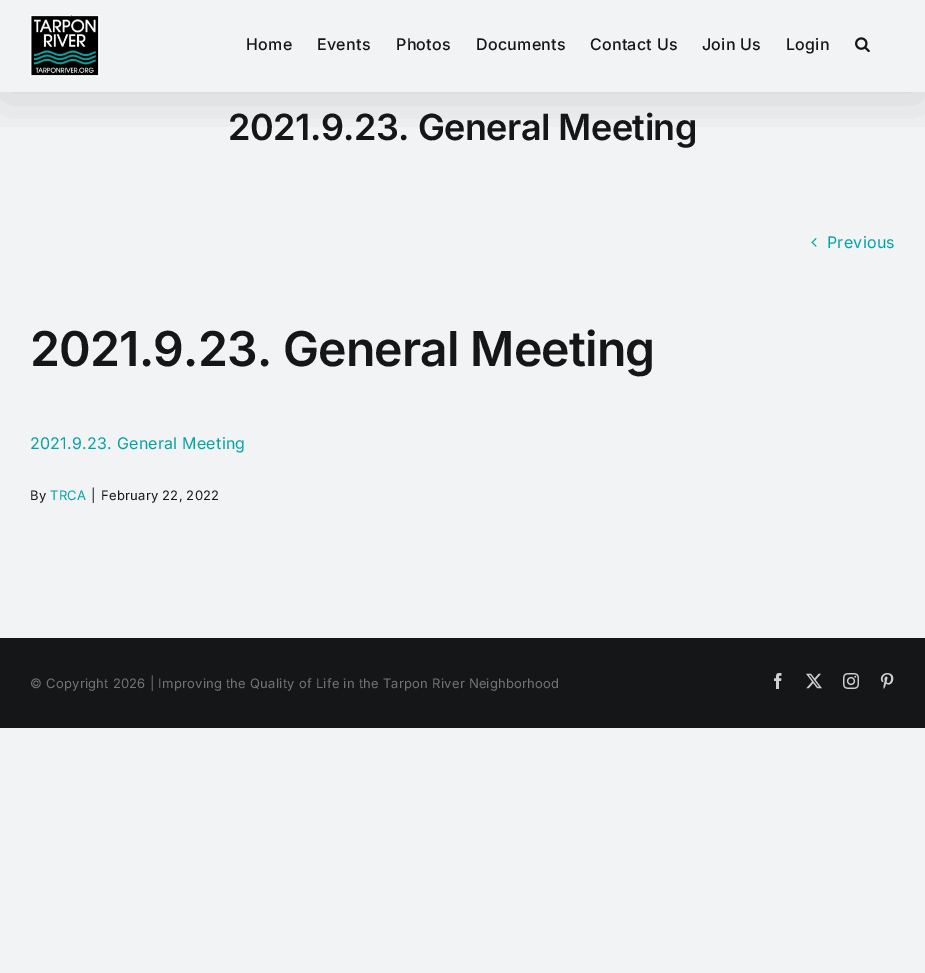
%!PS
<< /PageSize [925 973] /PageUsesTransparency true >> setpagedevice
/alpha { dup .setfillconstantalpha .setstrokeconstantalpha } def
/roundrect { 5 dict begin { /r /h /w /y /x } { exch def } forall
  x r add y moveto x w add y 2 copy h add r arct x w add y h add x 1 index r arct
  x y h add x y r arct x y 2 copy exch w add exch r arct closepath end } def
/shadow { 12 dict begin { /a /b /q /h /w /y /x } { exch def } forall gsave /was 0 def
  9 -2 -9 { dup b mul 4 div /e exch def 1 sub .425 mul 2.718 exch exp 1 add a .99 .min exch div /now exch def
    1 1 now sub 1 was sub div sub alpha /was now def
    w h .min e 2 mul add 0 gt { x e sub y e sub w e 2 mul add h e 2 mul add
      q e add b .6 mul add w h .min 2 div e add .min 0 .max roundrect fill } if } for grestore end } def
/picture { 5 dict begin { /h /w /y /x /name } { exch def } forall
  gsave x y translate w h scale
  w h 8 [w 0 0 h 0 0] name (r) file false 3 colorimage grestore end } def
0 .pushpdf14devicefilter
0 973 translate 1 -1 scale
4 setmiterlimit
0.949 0.953 0.961 setrgbcolor
0 0 925 973 rectfill
gsave
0 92 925 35 rectclip
0 setgray
2 12 921 88 0 25 0.14 shadow
grestore
(img1.rgb) 30 15 70 62 picture
/Inter-Medium [16 0 0 -16 0 0] selectfont
0.078 0.086 0.09 setrgbcolor
246 50 moveto 0.25 0 (Home) ashow
317 50 moveto 0.25 0 (Events) ashow
396 50 moveto 0.25 0 (Photos) ashow
476 50 moveto 0.25 0 (Documents) ashow
590 50 moveto 0.25 0 (Contact Us) ashow
702 50 moveto 0.25 0 (Join Us) ashow
786 50 moveto 0.25 0 (Login) ashow
(img2.rgb) 855 37 15 16 picture
/Inter-SemiBold [36 0 0 -36 0 0] selectfont
228 140 moveto -0.55 0 (2021.9.23. General Meeting) ashow
(img3.rgb) 811 238 6 9 picture
/Inter-Regular [16 0 0 -16 0 0] selectfont
0.012 0.639 0.643 setrgbcolor
827 248 moveto 0.25 0 (Previous) ashow
/Inter-SemiBold [48 0 0 -48 0 0] selectfont
0.078 0.086 0.09 setrgbcolor
30 366 moveto -0.75 0 (2021.9.23. General Meeting) ashow
/Inter-Regular [16 0 0 -16 0 0] selectfont
0.012 0.639 0.643 setrgbcolor
30 449 moveto 0.25 0 (2021.9.23. General Meeting) ashow
/Inter-Regular [13 0 0 -13 0 0] selectfont
0.078 0.086 0.09 setrgbcolor
30 500 moveto 0.25 0 (By) ashow
0.012 0.639 0.643 setrgbcolor
50 500 moveto 0.25 0 (TRCA) ashow
0.078 0.086 0.09 setrgbcolor
91 500 moveto 0.25 0 (|) ashow
101 500 moveto 0.25 0 (February 22, 2022) ashow
0 638 925 90 rectfill
0.447 0.451 0.455 setrgbcolor
30 688 moveto 0.25 0 (© Copyright 2026 | Improving the Quality of Life in the Tarpon River Neighborhood) ashow
(img4.rgb) 774 673 8 16 picture
(img5.rgb) 806 673 16 16 picture
(img6.rgb) 843 673 16 16 picture
(img7.rgb) 880 673 14 16 picture
.poppdf14devicefilter showpage
